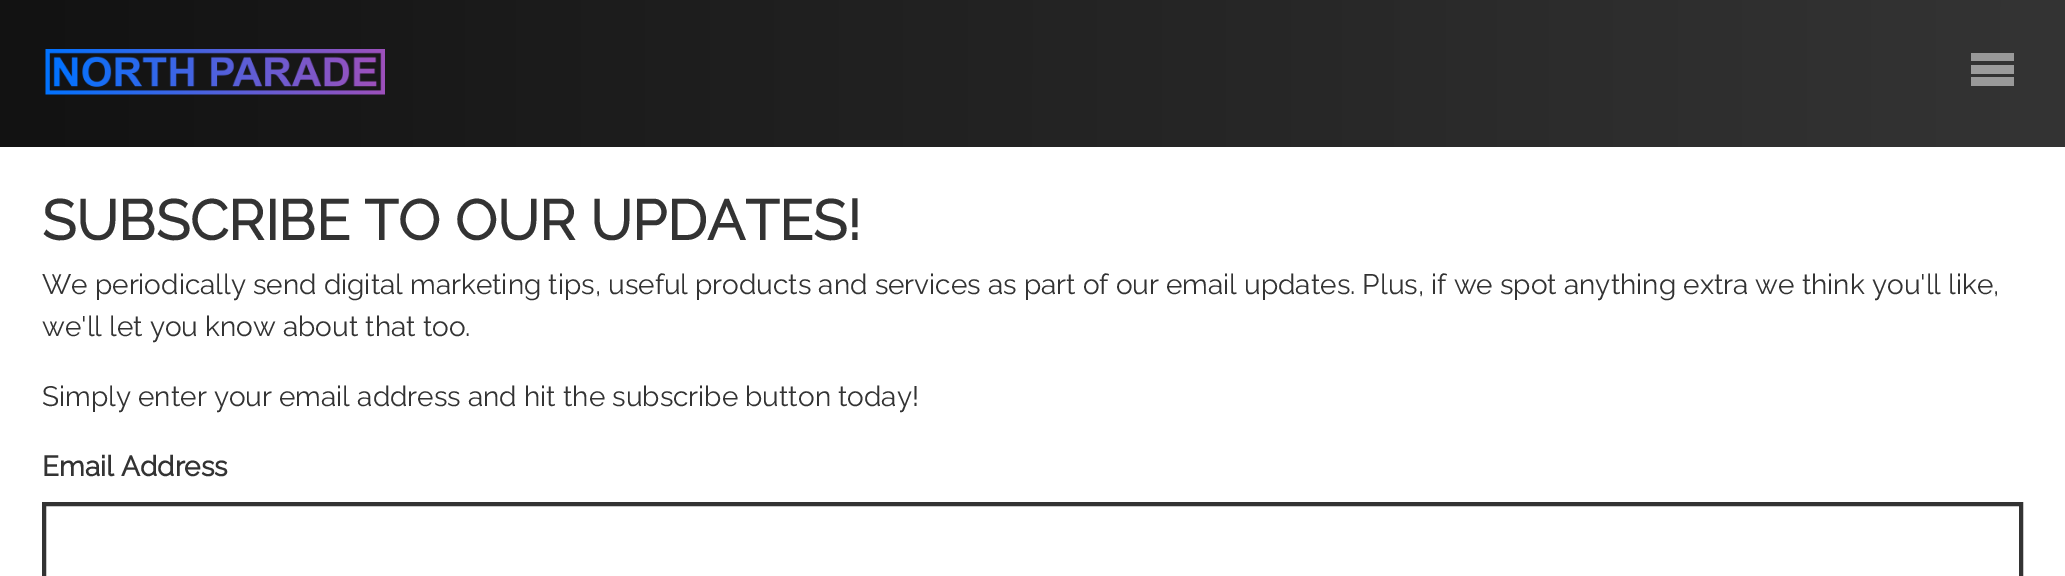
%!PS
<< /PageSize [2065 576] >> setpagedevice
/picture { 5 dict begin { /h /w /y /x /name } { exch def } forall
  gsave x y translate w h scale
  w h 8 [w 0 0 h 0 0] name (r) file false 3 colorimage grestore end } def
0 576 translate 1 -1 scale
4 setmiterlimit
1 setgray
0 0 2065 576 rectfill
gsave newpath 0 0 moveto 2065 0 lineto 2065 147 lineto 0 147 lineto closepath clip newpath
<< /ShadingType 2 /ColorSpace /DeviceRGB /Coords [2065 74 0 73] /Extend [true true] /Function << /FunctionType 2 /Domain [0 1] /C0 [0.204 0.204 0.204] /C1 [0.071 0.071 0.071] /N 1 >> >> shfill grestore
(img1.rgb) 45 49 340 46 picture
0.6 setgray
1971 53 43 8 rectfill
0.608 setgray
1971 65 43 9 rectfill
0.6 setgray
1971 77 43 9 rectfill
/Raleway-Bold [56 0 0 -56 0 0] selectfont
0.2 setgray
42 240 moveto (SUBSCRIBE TO OUR UPDATES!) show
/Raleway-Thin [28 0 0 -28 0 0] selectfont
42 294 moveto (We periodically send digital marketing tips, useful products and services as part of our email updates. Plus, if we spot anything extra we think you'll like,) show
42 336 moveto (we'll let you know about that too.) show
42 406 moveto (Simply enter your email address and hit the subscribe button today!) show
/Raleway-Bold [28 0 0 -28 0 0] selectfont
42 476 moveto (Email Address) show
4 setlinewidth
44 504 1977 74 rectstroke
showpage
